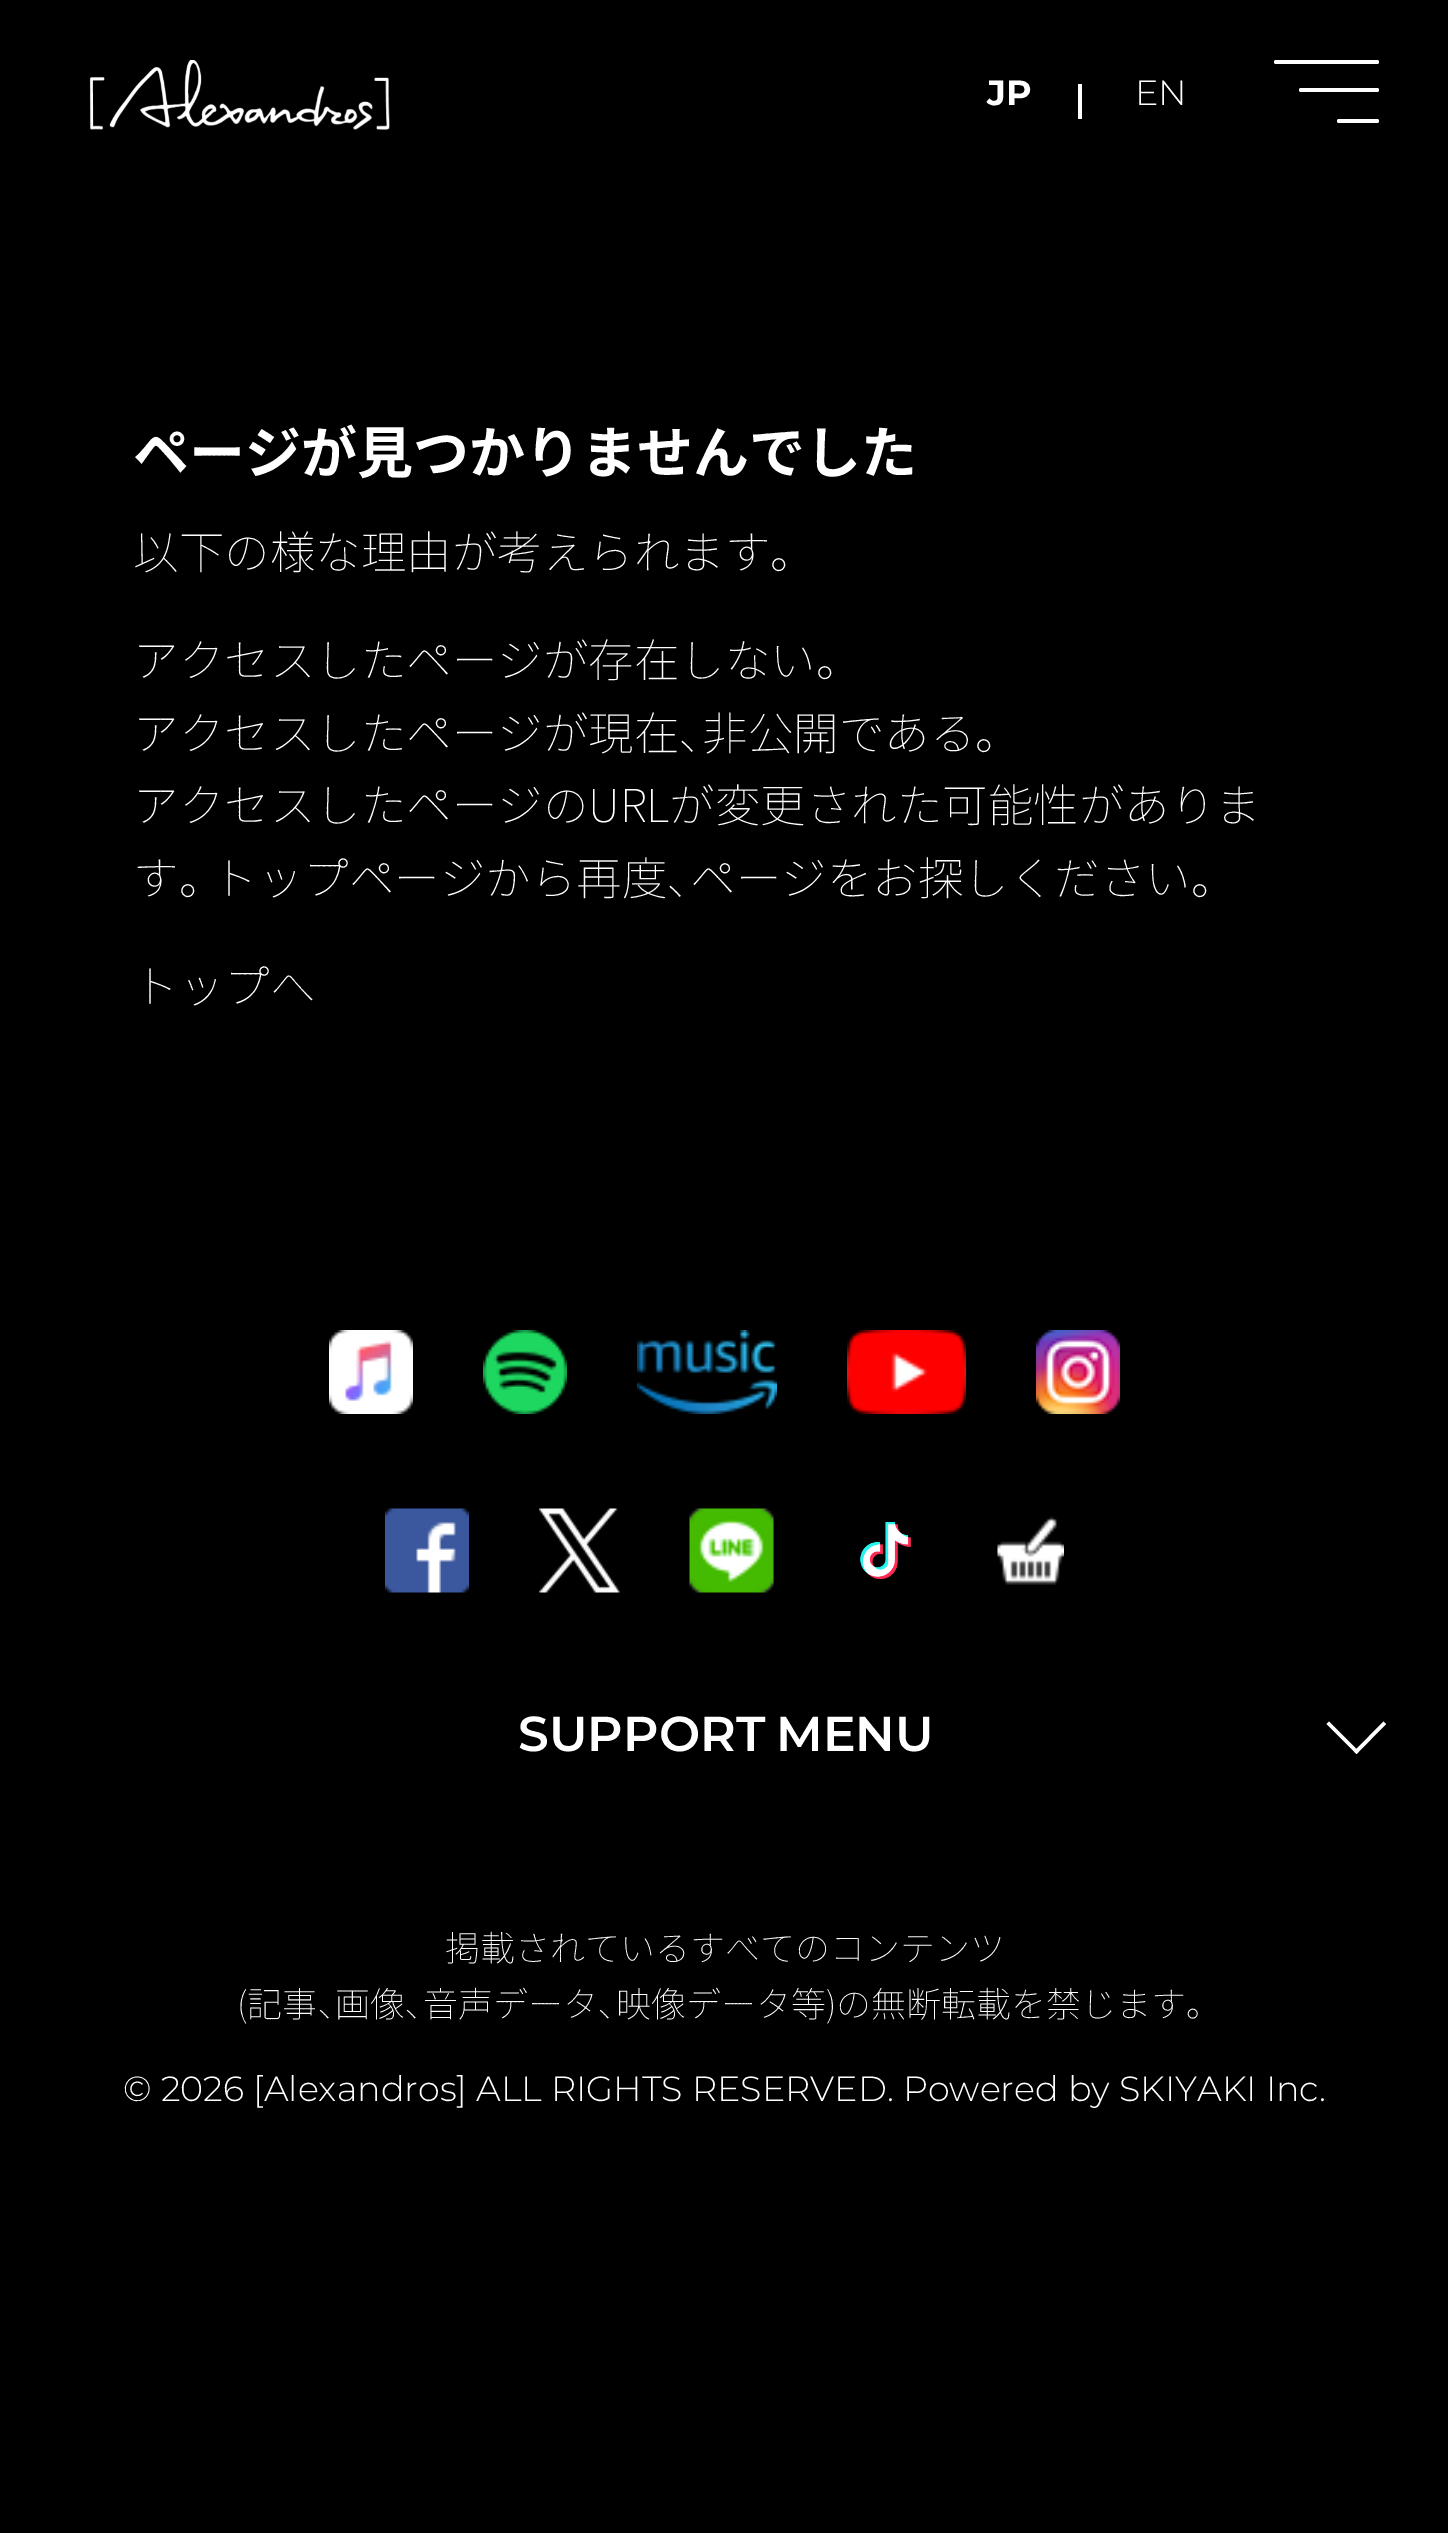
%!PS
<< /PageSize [1448 2533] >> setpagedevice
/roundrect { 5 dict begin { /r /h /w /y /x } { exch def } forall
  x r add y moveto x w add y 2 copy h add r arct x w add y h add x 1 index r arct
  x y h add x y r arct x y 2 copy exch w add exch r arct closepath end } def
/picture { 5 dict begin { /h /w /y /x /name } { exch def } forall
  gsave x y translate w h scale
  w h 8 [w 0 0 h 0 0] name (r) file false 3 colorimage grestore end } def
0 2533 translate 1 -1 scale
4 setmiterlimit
0 setgray
0 0 1448 2533 rectfill
(img1.rgb) 89 60 301 70 picture
/Montserrat-Bold [35 0 0 -35 0 0] selectfont
1 setgray
987 105 moveto (JP) show
1078 84 4 35 rectfill
/Montserrat-Light [35 0 0 -35 0 0] selectfont
1135 105 moveto (EN) show
1274 60 105 4 2 roundrect fill
1299 88 80 4 2 roundrect fill
1337 119 42 4 2 roundrect fill
/NotoSansJP-Bold [56 0 0 -56 0 0] selectfont
133 473 moveto (ページが見つかりませんでした) show
/NotoSansJP-Thin [45.5 0 0 -45.5 0 0] selectfont
133 569 moveto (以下の様な理由が考えられます) show
/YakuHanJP-Thin [45.5 0 0 -45.5 0 0] selectfont
770 569 moveto (。) show
/NotoSansJP-Thin [45.5 0 0 -45.5 0 0] selectfont
133 677 moveto (アクセスしたページが存在しない) show
/YakuHanJP-Thin [45.5 0 0 -45.5 0 0] selectfont
816 677 moveto (。) show
/NotoSansJP-Thin [45.5 0 0 -45.5 0 0] selectfont
133 750 moveto (アクセスしたページが現在) show
/YakuHanJP-Thin [45.5 0 0 -45.5 0 0] selectfont
679 750 moveto (、) show
/NotoSansJP-Thin [45.5 0 0 -45.5 0 0] selectfont
702 750 moveto (非公開である) show
/YakuHanJP-Thin [45.5 0 0 -45.5 0 0] selectfont
975 750 moveto (。) show
/NotoSansJP-Thin [45.5 0 0 -45.5 0 0] selectfont
133 822 moveto (アクセスしたページのURLが変更された可能性がありま) show
133 895 moveto (す) show
/YakuHanJP-Thin [45.5 0 0 -45.5 0 0] selectfont
179 895 moveto (。) show
/NotoSansJP-Thin [45.5 0 0 -45.5 0 0] selectfont
212 895 moveto (トップページから再度) show
/YakuHanJP-Thin [45.5 0 0 -45.5 0 0] selectfont
667 895 moveto (、) show
/NotoSansJP-Thin [45.5 0 0 -45.5 0 0] selectfont
690 895 moveto (ページをお探しください) show
/YakuHanJP-Thin [45.5 0 0 -45.5 0 0] selectfont
1191 895 moveto (。) show
/NotoSansJP-Thin [45.5 0 0 -45.5 0 0] selectfont
133 1003 moveto (トップへ) show
(img2.rgb) 329 1330 84 84 picture
(img3.rgb) 483 1330 84 84 picture
(img4.rgb) 637 1330 140 84 picture
(img5.rgb) 847 1330 119 84 picture
(img6.rgb) 1036 1330 84 84 picture
(img7.rgb) 385 1508 84 85 picture
(img8.rgb) 539 1508 81 85 picture
(img9.rgb) 689 1508 85 85 picture
(img10.rgb) 860 1522 51 57 picture
(img11.rgb) 997 1516 67 69 picture
/Montserrat-SemiBold [49 0 0 -49 0 0] selectfont
518 1751 moveto -3 0 32 (SUPPORT MENU) widthshow
newpath 1356.5 1754 moveto 1326.5 1724 lineto 1329 1721.5 lineto 1359 1751.5 lineto closepath fill
newpath 1356.5 1754 moveto 1354 1751.5 lineto 1383.5 1721.5 lineto 1386 1724 lineto closepath fill
/NotoSansJP-Thin [35 0 0 -35 0 0] selectfont
445 1961 moveto (掲載されているすべてのコンテンツ) show
237 2017 moveto (\(記事) show
/YakuHanJP-Thin [35 0 0 -35 0 0] selectfont
318 2017 moveto (、) show
/NotoSansJP-Thin [35 0 0 -35 0 0] selectfont
335 2017 moveto (画像) show
/YakuHanJP-Thin [35 0 0 -35 0 0] selectfont
405 2017 moveto (、) show
/NotoSansJP-Thin [35 0 0 -35 0 0] selectfont
423 2017 moveto (音声データ) show
/YakuHanJP-Thin [35 0 0 -35 0 0] selectfont
598 2017 moveto (、) show
/NotoSansJP-Thin [35 0 0 -35 0 0] selectfont
616 2017 moveto (映像データ等\)の無断転載を禁じます) show
/YakuHanJP-Thin [35 0 0 -35 0 0] selectfont
1186 2017 moveto (。) show
/Montserrat-Light [35 0 0 -35 0 0] selectfont
123 2101 moveto (© 2026 [Alexandros] ALL RIGHTS RESERVED. Powered by SKIYAKI Inc.) show
showpage
